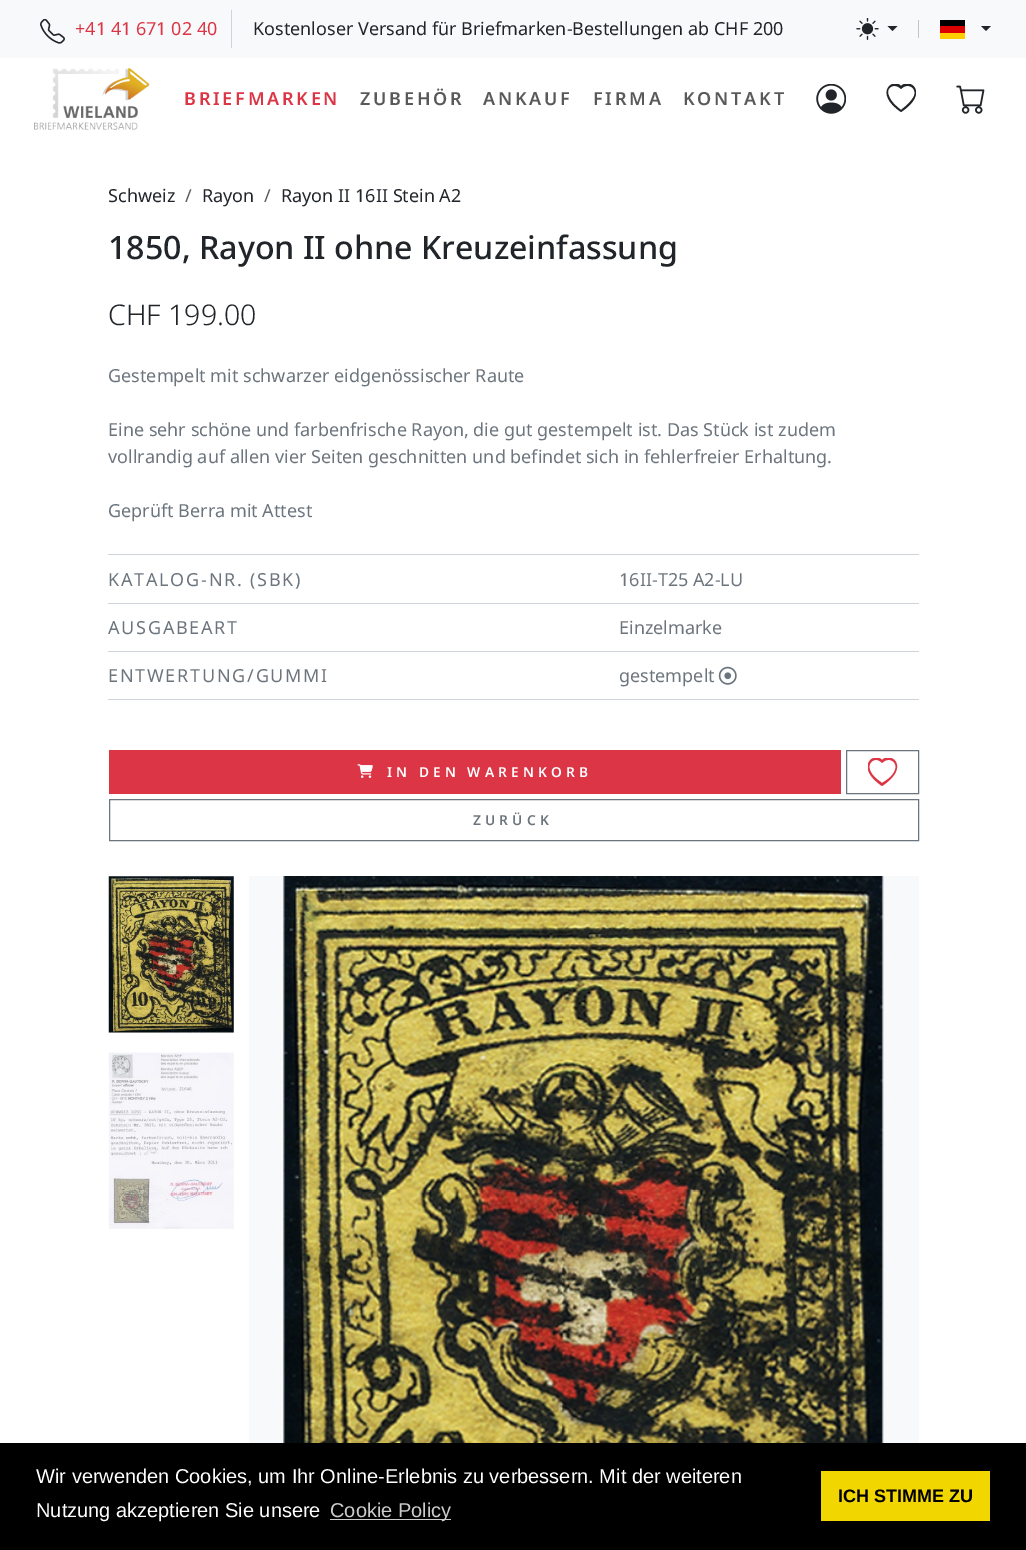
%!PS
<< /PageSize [1026 1550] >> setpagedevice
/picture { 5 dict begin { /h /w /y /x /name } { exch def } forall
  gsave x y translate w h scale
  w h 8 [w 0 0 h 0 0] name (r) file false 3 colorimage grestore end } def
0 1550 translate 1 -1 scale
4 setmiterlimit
1 setgray
0 0 1026 1550 rectfill
0.973 0.976 0.98 setrgbcolor
0 0 1026 58 rectfill
(img1.rgb) 40 19 25 25 picture
/NotoSans-Regular [18 0 0 -18 0 0] selectfont
0.863 0.208 0.271 setrgbcolor
75 35 moveto (+41 41 671 02 40) show
0.808 0.831 0.855 setrgbcolor
231 10 1 38 rectfill
0.129 0.145 0.161 setrgbcolor
253 35 moveto (Kostenloser Versand für Briefmarken-Bestellungen ab CHF 200) show
(img2.rgb) 856 18 23 22 picture
newpath 887.5 26 moveto 897.5 26 lineto 892.5 31 lineto closepath fill
0.761 0.769 0.776 setrgbcolor
918 20 1 18 rectfill
0 setgray
940 20 25 6 rectfill
1 0.808 0 setrgbcolor
940 33 25 6 rectfill
0.867 0 0 setrgbcolor
940 26 25 7 rectfill
0.129 0.145 0.161 setrgbcolor
newpath 981 26 moveto 991 26 lineto 986 31 lineto closepath fill
(img3.rgb) 34 68 116 62 picture
/NotoSans-SemiBold [18 0 0 -18 0 0] selectfont
0.863 0.208 0.271 setrgbcolor
184 105 moveto 2.75 0 (BRIEFMARKEN) ashow
0.349 setgray
360 105 moveto 2.75 0 (ZUBEHÖR) ashow
483 105 moveto 2.75 0 (ANKAUF) ashow
593 105 moveto 2.75 0 (FIRMA) ashow
683 105 moveto 2.75 0 (KONTAKT) ashow
(img4.rgb) 816 84 30 30 picture
gsave
886 84 30 30 rectclip
0.129 0.145 0.161 setrgbcolor
newpath 901 89 moveto 894 82 885 88 889 96 curveto 891 102 896 106 901 110 curveto 906 106 911 102 914 96 curveto 917 88 908 82 901 89 curveto closepath 901 112 moveto 873 93 893 77 901 86 curveto 910 77 930 93 901 112 curveto closepath fill
grestore
(img5.rgb) 956 85 29 29 picture
/NotoSans-Regular [18 0 0 -18 0 0] selectfont
0.129 0.145 0.161 setrgbcolor
108 202 moveto (Schweiz) show
0.349 0.361 0.373 setrgbcolor
185 202 moveto (/) show
0.129 0.145 0.161 setrgbcolor
202 202 moveto (Rayon) show
0.349 0.361 0.373 setrgbcolor
264 202 moveto (/) show
0.129 0.145 0.161 setrgbcolor
281 202 moveto (Rayon II 16II Stein A2) show
/NotoSans-Medium [32.2 0 0 -32.2 0 0] selectfont
108 259 moveto (1850, Rayon II ohne Kreuzeinfassung) show
/NotoSans-Light [28.5 0 0 -28.5 0 0] selectfont
108 325 moveto (CHF 199.00) show
0.808 0.831 0.855 setrgbcolor
108 554 811 1 rectfill
/NotoSans-Regular [18 0 0 -18 0 0] selectfont
0.424 0.459 0.49 setrgbcolor
108 382 moveto (Gestempelt mit schwarzer eidgenössischer Raute) show
108 436 moveto (Eine sehr schöne und farbenfrische Rayon, die gut gestempelt ist. Das Stück ist zudem) show
108 463 moveto (vollrandig auf allen vier Seiten geschnitten und befindet sich in fehlerfreier Erhaltung.) show
108 517 moveto (Geprüft Berra mit Attest) show
108 586 moveto 1.75 0 (KATALOG-NR. \(SBK\)) ashow
0.808 0.831 0.855 setrgbcolor
108 603 811 1 rectfill
0.424 0.459 0.49 setrgbcolor
619 586 moveto (16II-T25 A2-LU) show
108 634 moveto 1.75 0 (AUSGABEART) ashow
0.808 0.831 0.855 setrgbcolor
108 651 811 1 rectfill
0.424 0.459 0.49 setrgbcolor
619 634 moveto (Einzelmarke) show
108 682 moveto 1.75 0 (ENTWERTUNG/GUMMI) ashow
0.808 0.831 0.855 setrgbcolor
108 699 811 1 rectfill
0.424 0.459 0.49 setrgbcolor
619 682 moveto (gestempelt) show
(img6.rgb) 718 666 19 19 picture
0.863 0.208 0.271 setrgbcolor
109 750 732 44 rectfill
(img7.rgb) 357 764 16 14 picture
/NotoSans-SemiBold [13.75 0 0 -13.75 0 0] selectfont
1 setgray
387 777 moveto 4.1 0 (IN DEN WARENKORB) ashow
0.424 0.459 0.49 setrgbcolor
846.5 750.5 72 43 rectstroke
gsave
868 758 30 30 rectclip
0.863 0.208 0.271 setrgbcolor
newpath 882 763 moveto 876 756 867 762 870 770 curveto 872 776 878 780 882 783 curveto 887 780 893 776 895 770 curveto 898 762 889 756 882 763 curveto closepath 882 786 moveto 854 767 874 751 882 760 curveto 891 751 911 767 882 786 curveto closepath fill
grestore
109.5 799.5 809 41 rectstroke
473 825 moveto 4.1 0 (ZURÜCK) ashow
0.937 setgray
109 876 125 157 rectfill
(img8.rgb) 108 876 126 157 picture
0.969 setgray
109 1053 125 176 rectfill
(img9.rgb) 108 1052 126 177 picture
0.973 0.976 0.98 setrgbcolor
249 876 670 567 rectfill
(img10.rgb) 283 876 601 567 picture
0 setgray
0 1443 1026 107 rectfill
/LiberationSans-Regular [20 0 0 -20 0 0] selectfont
1 setgray
36 1483 moveto (Wir verwenden Cookies, um Ihr Online-Erlebnis zu verbessern. Mit der weiteren) show
36 1517 moveto (Nutzung akzeptieren Sie unsere) show
0.8 setgray
330 1519 121 1 rectfill
330 1517 moveto (Cookie Policy) show
0.945 0.839 0 setrgbcolor
821 1471 169 50 rectfill
/LiberationSans-Bold [18 0 0 -18 0 0] selectfont
0 setgray
838 1502 moveto (ICH STIMME ZU) show
showpage
